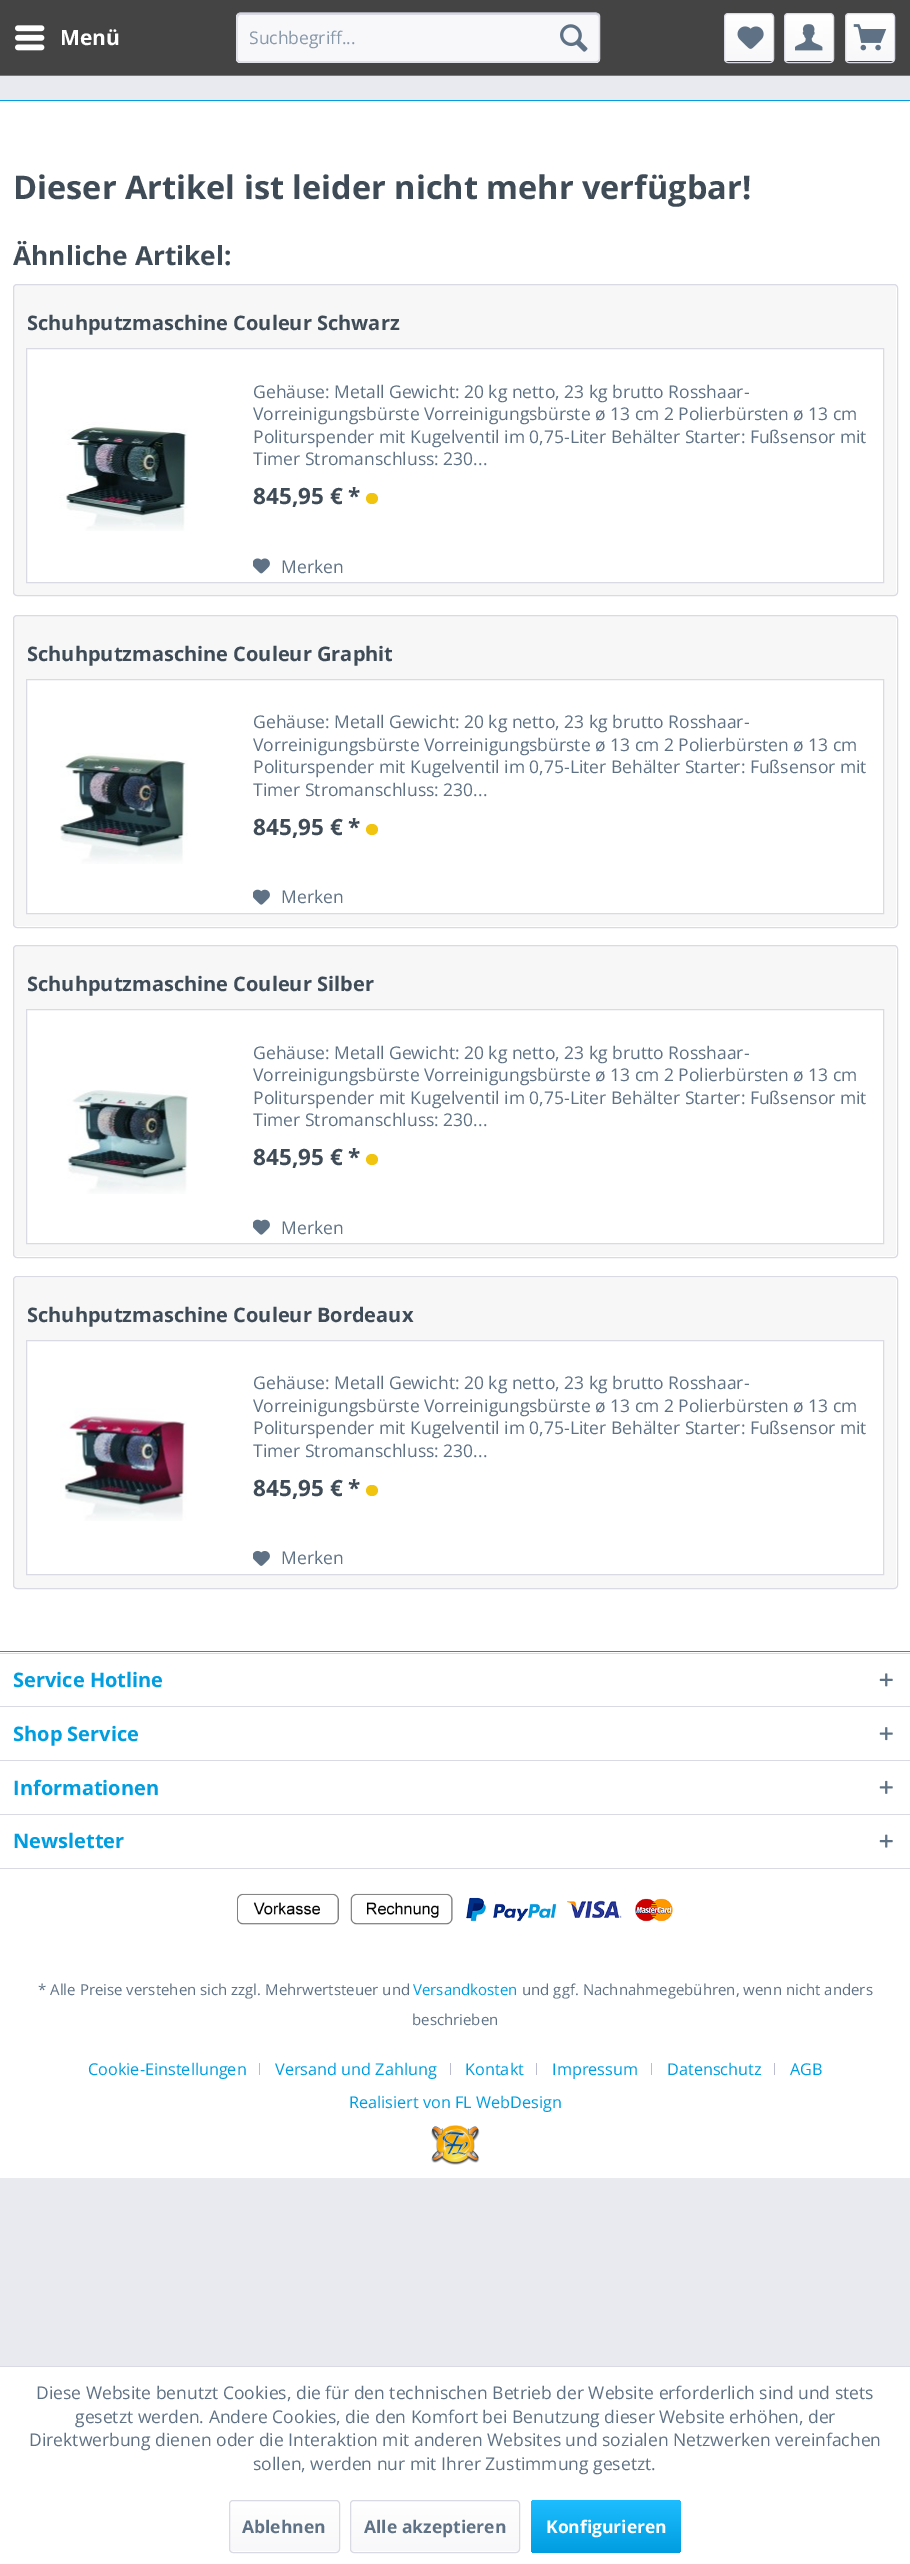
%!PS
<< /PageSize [910 2564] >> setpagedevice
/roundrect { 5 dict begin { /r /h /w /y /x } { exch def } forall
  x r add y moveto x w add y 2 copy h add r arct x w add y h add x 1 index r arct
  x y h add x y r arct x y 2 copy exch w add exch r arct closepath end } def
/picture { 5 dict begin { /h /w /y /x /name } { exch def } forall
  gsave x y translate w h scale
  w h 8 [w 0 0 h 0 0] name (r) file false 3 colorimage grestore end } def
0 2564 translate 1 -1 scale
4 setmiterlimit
0.914 0.914 0.941 setrgbcolor
0 0 910 2564 rectfill
0.267 setgray
0 0 910 75 rectfill
0 0.62 0.878 setrgbcolor
0 75 910 1 rectfill
(img1.rgb) 15 25 30 26 picture
/OpenSans-Bold [21 0 0 -21 0 0] selectfont
1 setgray
60 45 moveto (Menü) show
0.973 0.973 0.98 setrgbcolor
236 13 364 50 4 roundrect fill
0.855 0.855 0.898 setrgbcolor
newpath 240 15 moveto 596 15 lineto 598 15 599 16 599 18 curveto 599 16 599 14 596 14 curveto 240 14 lineto 238 14 238 16 238 18 curveto 238 16 239 15 240 15 curveto closepath fill
0.796 0.796 0.859 setrgbcolor
1.2 setlinewidth
newpath 238 14 moveto 240 13 lineto 596 13 lineto 598.5 14 lineto stroke
0.855 0.855 0.898 setrgbcolor
newpath 598.5 14 moveto 599.5 16 lineto 599.5 59 lineto 598.5 61 lineto 596 62 lineto 240 62 lineto 238 61 lineto 237 59 lineto 237 16.5 lineto 238 14 lineto stroke
/OpenSans-Regular [17.5 0 0 -17.5 0 0] selectfont
0.529 0.596 0.663 setrgbcolor
249 44 moveto (Suchbegriff...) show
(img2.rgb) 560 24 28 28 picture
gsave 725 14 48 47 2.5 roundrect clip newpath
<< /ShadingType 2 /ColorSpace /DeviceRGB /Coords [749 14 749 61] /Extend [true true] /Function << /FunctionType 2 /Domain [0 1] /C0 [1 1 1] /C1 [0.973 0.973 0.98] /N 1 >> >> shfill grestore
0.855 0.855 0.898 setrgbcolor
1 setlinewidth
724.5 13.5 49 49 3.5 roundrect stroke
(img3.rgb) 737 26 27 23 picture
gsave 785 14 48 47 2.5 roundrect clip newpath
<< /ShadingType 2 /ColorSpace /DeviceRGB /Coords [809 14 809 61] /Extend [true true] /Function << /FunctionType 2 /Domain [0 1] /C0 [1 1 1] /C1 [0.973 0.973 0.98] /N 1 >> >> shfill grestore
784.5 13.5 49 49 3.5 roundrect stroke
(img4.rgb) 795 24 28 27 picture
gsave 846 14 48 47 2.5 roundrect clip newpath
<< /ShadingType 2 /ColorSpace /DeviceRGB /Coords [870 14 870 61] /Extend [true true] /Function << /FunctionType 2 /Domain [0 1] /C0 [1 1 1] /C1 [0.973 0.973 0.98] /N 1 >> >> shfill grestore
845.5 13.5 49 49 3.5 roundrect stroke
(img5.rgb) 853 24 34 27 picture
0 0.62 0.878 setrgbcolor
0 100 910 1 rectfill
1 setgray
0 101 910 1550 rectfill
/OpenSans-Bold [32.5 0 0 -32.5 0 0] selectfont
0.247 0.298 0.345 setrgbcolor
13 199 moveto (Dieser Artikel ist leider nicht mehr verfügbar!) show
/OpenSans-Bold [26.25 0 0 -26.25 0 0] selectfont
13 265 moveto (Ähnliche Artikel:) show
0.969 setgray
14 285 882 310 2.5 roundrect fill
0.855 0.855 0.898 setrgbcolor
13.5 284.5 884 311 3.5 roundrect stroke
/OpenSans-Bold [20 0 0 -20 0 0] selectfont
0.247 0.298 0.345 setrgbcolor
27 330 moveto (Schuhputzmaschine Couleur Schwarz) show
1 setgray
newpath 26.5 348.5 moveto 883.5 348.5 lineto 883.5 582.5 lineto 26.5 582.5 lineto closepath gsave fill grestore
0.855 0.855 0.898 setrgbcolor
stroke
(img6.rgb) 59 422 129 109 picture
/OpenSans-Regular [17.5 0 0 -17.5 0 0] selectfont
0.373 0.447 0.522 setrgbcolor
253 398 moveto (Gehäuse: Metall Gewicht: 20 kg netto, 23 kg brutto Rosshaar-) show
253 420 moveto (Vorreinigungsbürste Vorreinigungsbürste ø 13 cm 2 Polierbürsten ø 13 cm) show
253 443 moveto (Politurspender mit Kugelventil im 0,75-Liter Behälter Starter: Fußsensor mit) show
253 465 moveto (Timer Stromanschluss: 230...) show
/OpenSans-Bold [22.5 0 0 -22.5 0 0] selectfont
0.247 0.298 0.345 setrgbcolor
253 504 moveto (845,95 € *) show
0.945 0.769 0.059 setrgbcolor
366 493 12 11 5.5 roundrect fill
(img7.rgb) 253 558 17 16 picture
/OpenSans-Regular [17.5 0 0 -17.5 0 0] selectfont
0.373 0.447 0.522 setrgbcolor
281 573 moveto (Merken) show
0.969 setgray
14 616 882 310 2.5 roundrect fill
0.855 0.855 0.898 setrgbcolor
13.5 615.5 884 312 3.5 roundrect stroke
/OpenSans-Bold [20 0 0 -20 0 0] selectfont
0.247 0.298 0.345 setrgbcolor
27 661 moveto (Schuhputzmaschine Couleur Graphit) show
1 setgray
newpath 26.5 679.5 moveto 883.5 679.5 lineto 883.5 913.5 lineto 26.5 913.5 lineto closepath gsave fill grestore
0.855 0.855 0.898 setrgbcolor
stroke
(img8.rgb) 60 753 128 111 picture
/OpenSans-Regular [17.5 0 0 -17.5 0 0] selectfont
0.373 0.447 0.522 setrgbcolor
253 728 moveto (Gehäuse: Metall Gewicht: 20 kg netto, 23 kg brutto Rosshaar-) show
253 751 moveto (Vorreinigungsbürste Vorreinigungsbürste ø 13 cm 2 Polierbürsten ø 13 cm) show
253 773 moveto (Politurspender mit Kugelventil im 0,75-Liter Behälter Starter: Fußsensor mit) show
253 796 moveto (Timer Stromanschluss: 230...) show
/OpenSans-Bold [22.5 0 0 -22.5 0 0] selectfont
0.247 0.298 0.345 setrgbcolor
253 835 moveto (845,95 € *) show
0.945 0.769 0.059 setrgbcolor
366 824 12 11 5.5 roundrect fill
(img9.rgb) 253 889 17 16 picture
/OpenSans-Regular [17.5 0 0 -17.5 0 0] selectfont
0.373 0.447 0.522 setrgbcolor
281 903 moveto (Merken) show
0.969 setgray
14 946 882 310 2.5 roundrect fill
0.855 0.855 0.898 setrgbcolor
13.5 945.5 884 312 3.5 roundrect stroke
/OpenSans-Bold [20 0 0 -20 0 0] selectfont
0.247 0.298 0.345 setrgbcolor
27 991 moveto (Schuhputzmaschine Couleur Silber) show
1 setgray
newpath 26.5 1009.5 moveto 883.5 1009.5 lineto 883.5 1243.5 lineto 26.5 1243.5 lineto closepath gsave fill grestore
0.855 0.855 0.898 setrgbcolor
stroke
(img10.rgb) 67 1090 121 104 picture
/OpenSans-Regular [17.5 0 0 -17.5 0 0] selectfont
0.373 0.447 0.522 setrgbcolor
253 1059 moveto (Gehäuse: Metall Gewicht: 20 kg netto, 23 kg brutto Rosshaar-) show
253 1081 moveto (Vorreinigungsbürste Vorreinigungsbürste ø 13 cm 2 Polierbürsten ø 13 cm) show
253 1104 moveto (Politurspender mit Kugelventil im 0,75-Liter Behälter Starter: Fußsensor mit) show
253 1126 moveto (Timer Stromanschluss: 230...) show
/OpenSans-Bold [22.5 0 0 -22.5 0 0] selectfont
0.247 0.298 0.345 setrgbcolor
253 1165 moveto (845,95 € *) show
0.945 0.769 0.059 setrgbcolor
366 1154 12 11 5.5 roundrect fill
(img9.rgb) 253 1219 17 16 picture
/OpenSans-Regular [17.5 0 0 -17.5 0 0] selectfont
0.373 0.447 0.522 setrgbcolor
281 1234 moveto (Merken) show
0.969 setgray
14 1278 882 310 2.5 roundrect fill
0.855 0.855 0.898 setrgbcolor
13.5 1276.5 884 312 3.5 roundrect stroke
/OpenSans-Bold [20 0 0 -20 0 0] selectfont
0.247 0.298 0.345 setrgbcolor
27 1322 moveto (Schuhputzmaschine Couleur Bordeaux) show
1 setgray
newpath 26.5 1340.5 moveto 883.5 1340.5 lineto 883.5 1574.5 lineto 26.5 1574.5 lineto closepath gsave fill grestore
0.855 0.855 0.898 setrgbcolor
stroke
(img11.rgb) 60 1408 127 113 picture
/OpenSans-Regular [17.5 0 0 -17.5 0 0] selectfont
0.373 0.447 0.522 setrgbcolor
253 1389 moveto (Gehäuse: Metall Gewicht: 20 kg netto, 23 kg brutto Rosshaar-) show
253 1412 moveto (Vorreinigungsbürste Vorreinigungsbürste ø 13 cm 2 Polierbürsten ø 13 cm) show
253 1434 moveto (Politurspender mit Kugelventil im 0,75-Liter Behälter Starter: Fußsensor mit) show
253 1457 moveto (Timer Stromanschluss: 230...) show
/OpenSans-Bold [22.5 0 0 -22.5 0 0] selectfont
0.247 0.298 0.345 setrgbcolor
253 1496 moveto (845,95 € *) show
0.945 0.769 0.059 setrgbcolor
366 1485 12 11 5.5 roundrect fill
(img12.rgb) 253 1550 17 16 picture
/OpenSans-Regular [17.5 0 0 -17.5 0 0] selectfont
0.373 0.447 0.522 setrgbcolor
281 1564 moveto (Merken) show
1 setgray
0 1652 910 526 rectfill
0 0.62 0.878 setrgbcolor
0 1651 910 1 rectfill
0.855 0.855 0.898 setrgbcolor
0 1653 910 1 rectfill
/OpenSans-Bold [20 0 0 -20 0 0] selectfont
0 0.62 0.878 setrgbcolor
13 1687 moveto (Service Hotline) show
(img13.rgb) 879 1673 14 14 picture
0.855 0.855 0.898 setrgbcolor
0 1706 910 1 rectfill
0 0.62 0.878 setrgbcolor
13 1741 moveto (Shop Service) show
(img14.rgb) 879 1727 14 14 picture
0.855 0.855 0.898 setrgbcolor
0 1760 910 1 rectfill
0 0.62 0.878 setrgbcolor
13 1795 moveto (Informationen) show
(img15.rgb) 879 1780 14 14 picture
0.855 0.855 0.898 setrgbcolor
0 1814 910 1 rectfill
0 1868 910 1 rectfill
0 0.62 0.878 setrgbcolor
13 1848 moveto (Newsletter) show
(img16.rgb) 879 1834 14 14 picture
(img17.rgb) 237 1893 436 32 picture
/OpenSans-Regular [15 0 0 -15 0 0] selectfont
0.373 0.447 0.522 setrgbcolor
38 1995 moveto (* Alle Preise verstehen sich zzgl. Mehrwertsteuer und) show
0 0.62 0.878 setrgbcolor
413 1995 moveto (Versandkosten) show
0.373 0.447 0.522 setrgbcolor
522 1995 moveto (und ggf. Nachnahmegebühren, wenn nicht anders) show
412 2025 moveto (beschrieben) show
/OpenSans-Regular [16.25 0 0 -16.25 0 0] selectfont
0 0.62 0.878 setrgbcolor
88 2075 moveto (Cookie-Einstellungen) show
0.737 0.737 0.816 setrgbcolor
259 2063 1 12 rectfill
0 0.62 0.878 setrgbcolor
275 2075 moveto (Versand und Zahlung) show
0.737 0.737 0.816 setrgbcolor
450 2063 1 12 rectfill
0 0.62 0.878 setrgbcolor
465 2075 moveto (Kontakt) show
0.737 0.737 0.816 setrgbcolor
536 2063 1 12 rectfill
0 0.62 0.878 setrgbcolor
552 2075 moveto (Impressum) show
0.737 0.737 0.816 setrgbcolor
651 2063 1 12 rectfill
0 0.62 0.878 setrgbcolor
667 2075 moveto (Datenschutz) show
0.737 0.737 0.816 setrgbcolor
774 2063 1 12 rectfill
0 0.62 0.878 setrgbcolor
790 2075 moveto (AGB) show
349 2108 moveto (Realisiert von FL WebDesign) show
(img18.rgb) 431 2125 49 40 picture
1 setgray
0 2367 910 197 rectfill
0.855 0.855 0.898 setrgbcolor
0 2366 910 1 rectfill
/OpenSans-Regular [17.5 0 0 -17.5 0 0] selectfont
0.373 0.447 0.522 setrgbcolor
36 2399 moveto (Diese Website benutzt Cookies, die für den technischen Betrieb der Website erforderlich sind und stets) show
75 2423 moveto (gesetzt werden. Andere Cookies, die den Komfort bei Benutzung dieser Website erhöhen, der) show
29 2446 moveto (Direktwerbung dienen oder die Interaktion mit anderen Websites und sozialen Netzwerken vereinfachen) show
253 2470 moveto (sollen, werden nur mit Ihrer Zustimmung gesetzt.) show
gsave 230 2501 109 50 2.5 roundrect clip newpath
<< /ShadingType 2 /ColorSpace /DeviceRGB /Coords [284 2501 284 2551] /Extend [true true] /Function << /FunctionType 2 /Domain [0 1] /C0 [1 1 1] /C1 [0.973 0.973 0.98] /N 1 >> >> shfill grestore
0.855 0.855 0.898 setrgbcolor
229.5 2500.5 110 52 3.5 roundrect stroke
/OpenSans-Bold [17.5 0 0 -17.5 0 0] selectfont
0.373 0.447 0.522 setrgbcolor
242 2533 moveto (Ablehnen) show
gsave 351 2501 168 50 2.5 roundrect clip newpath
<< /ShadingType 2 /ColorSpace /DeviceRGB /Coords [435 2501 435 2551] /Extend [true true] /Function << /FunctionType 2 /Domain [0 1] /C0 [1 1 1] /C1 [0.973 0.973 0.98] /N 1 >> >> shfill grestore
0.855 0.855 0.898 setrgbcolor
350.5 2500.5 169 52 3.5 roundrect stroke
0.373 0.447 0.522 setrgbcolor
364 2533 moveto (Alle akzeptieren) show
gsave 531 2500 150 53 4 roundrect clip newpath
<< /ShadingType 2 /ColorSpace /DeviceRGB /Coords [606 2500 606 2553] /Extend [true true] /Function << /FunctionType 2 /Domain [0 1] /C0 [0.118 0.741 1] /C1 [0 0.62 0.878] /N 1 >> >> shfill grestore
1 setgray
546 2533 moveto (Konfigurieren) show
showpage
